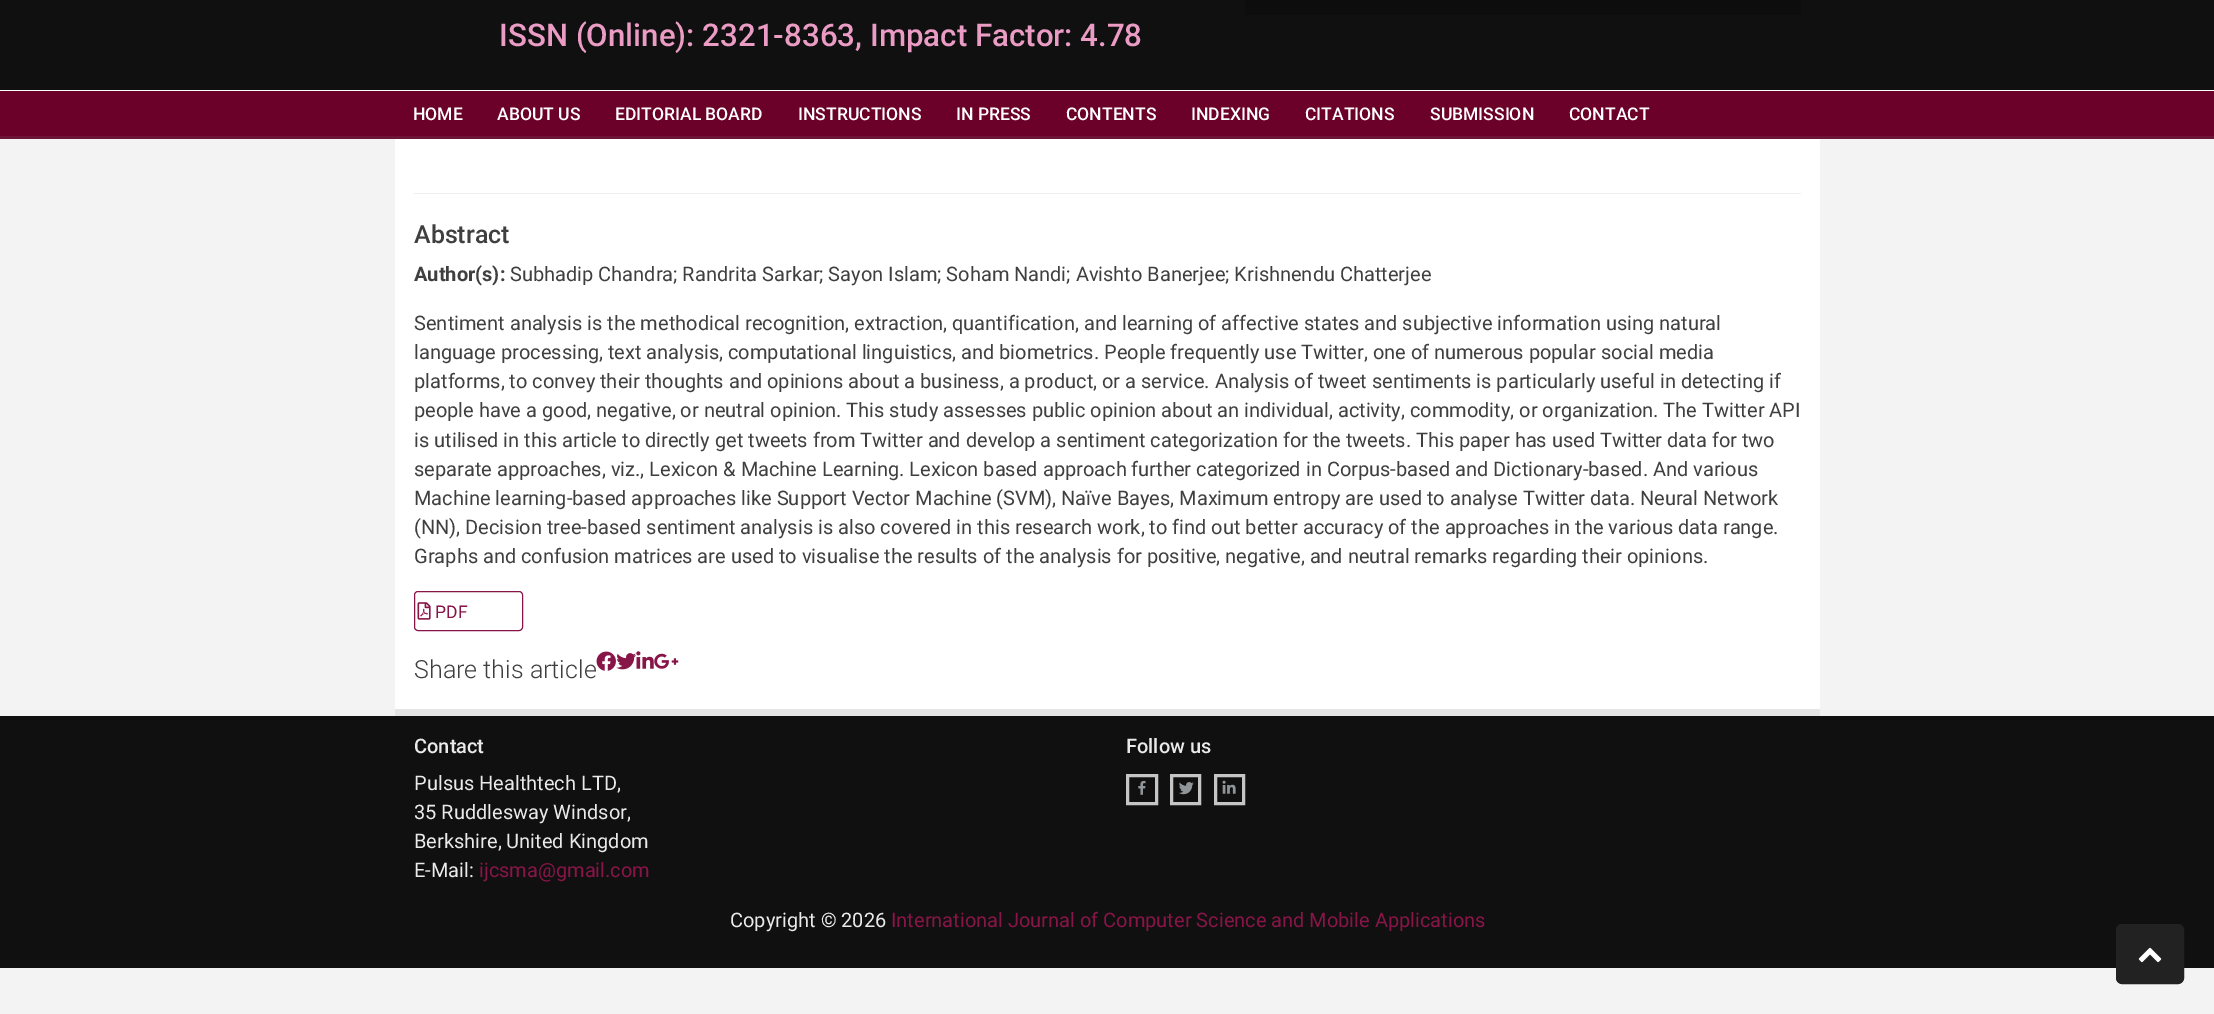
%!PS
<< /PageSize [2214 1014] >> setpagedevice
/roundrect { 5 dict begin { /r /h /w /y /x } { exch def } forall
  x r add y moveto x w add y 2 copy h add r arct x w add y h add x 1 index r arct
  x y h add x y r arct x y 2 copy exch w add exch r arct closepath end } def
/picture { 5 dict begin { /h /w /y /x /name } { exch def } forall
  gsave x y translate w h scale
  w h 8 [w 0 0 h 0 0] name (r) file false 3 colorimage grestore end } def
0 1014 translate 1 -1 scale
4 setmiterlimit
0.953 setgray
0 0 2214 1014 rectfill
0.063 setgray
0 0 2214 90 rectfill
0.051 setgray
1245 0 556 15 rectfill
/Roboto-Medium [31.25 0 0 -31.25 0 0] selectfont
0.918 0.612 0.769 setrgbcolor
499 46 moveto (ISSN \(Online\): 2321-8363, Impact Factor: 4.78) show
0.42 0.004 0.161 setrgbcolor
0 91 2214 45 rectfill
1 setgray
0 90 2214 1 rectfill
0.431 0.078 0.216 setrgbcolor
0 136 2214 3 rectfill
/Roboto-Medium [17.5 0 0 -17.5 0 0] selectfont
1 setgray
413 120 moveto (HOME) show
497 120 moveto (ABOUT US) show
615 120 moveto (EDITORIAL BOARD) show
798 120 moveto (INSTRUCTIONS) show
956 120 moveto (IN PRESS) show
1066 120 moveto (CONTENTS) show
1191 120 moveto (INDEXING) show
1305 120 moveto (CITATIONS) show
1430 120 moveto (SUBMISSION) show
1569 120 moveto (CONTACT) show
395 139 1425 570 rectfill
0.898 setgray
395 709 1425 7 rectfill
0.937 setgray
414 193 1387 1 rectfill
/Roboto-Medium [25 0 0 -25 0 0] selectfont
0.247 setgray
414 243 moveto (Abstract) show
/Roboto-Bold [20 0 0 -20 0 0] selectfont
414 281 moveto (Author\(s\):) show
/Roboto-Regular [20 0 0 -20 0 0] selectfont
510 281 moveto (Subhadip Chandra; Randrita Sarkar; Sayon Islam; Soham Nandi; Avishto Banerjee; Krishnendu Chatterjee) show
414 330 moveto (Sentiment analysis is the methodical recognition, extraction, quantification, and learning of affective states and subjective information using natural) show
414 359 moveto (language processing, text analysis, computational linguistics, and biometrics. People frequently use Twitter, one of numerous popular social media) show
414 388 moveto (platforms, to convey their thoughts and opinions about a business, a product, or a service. Analysis of tweet sentiments is particularly useful in detecting if) show
414 417 moveto (people have a good, negative, or neutral opinion. This study assesses public opinion about an individual, activity, commodity, or organization. The Twitter API) show
414 447 moveto (is utilised in this article to directly get tweets from Twitter and develop a sentiment categorization for the tweets. This paper has used Twitter data for two) show
414 476 moveto (separate approaches, viz., Lexicon & Machine Learning. Lexicon based approach further categorized in Corpus-based and Dictionary-based. And various) show
414 505 moveto (Machine learning-based approaches like Support Vector Machine \(SVM\), Naïve Bayes, Maximum entropy are used to analyse Twitter data. Neural Network) show
414 534 moveto (\(NN\), Decision tree-based sentiment analysis is also covered in this research work, to find out better accuracy of the approaches in the various data range.) show
414 563 moveto (Graphs and confusion matrices are used to visualise the results of the analysis for positive, negative, and neutral remarks regarding their opinions.) show
0.533 0.082 0.282 setrgbcolor
414.5 591.5 108 39 3.5 roundrect stroke
(img1.rgb) 417 602 14 18 picture
/Roboto-Regular [17.5 0 0 -17.5 0 0] selectfont
435 618 moveto (PDF) show
/Roboto-Light [25 0 0 -25 0 0] selectfont
0.247 setgray
414 678 moveto (Share this article) show
(img2.rgb) 596 651 20 20 picture
(img3.rgb) 616 653 21 17 picture
(img4.rgb) 636 651 18 18 picture
(img5.rgb) 654 653 25 16 picture
0.063 setgray
0 716 2214 252 rectfill
/Roboto-Medium [20 0 0 -20 0 0] selectfont
0.918 setgray
414 753 moveto (Contact) show
/Roboto-Regular [20 0 0 -20 0 0] selectfont
414 790 moveto (Pulsus Healthtech LTD,) show
414 819 moveto (35 Ruddlesway Windsor,) show
414 848 moveto (Berkshire, United Kingdom) show
414 877 moveto (E-Mail:) show
0.533 0.082 0.282 setrgbcolor
479 877 moveto (ijcsma@gmail.com) show
/Roboto-Medium [20 0 0 -20 0 0] selectfont
0.918 setgray
1126 753 moveto (Follow us) show
0.773 setgray
3 setlinewidth
1127.5 775.5 29 28 rectstroke
(img6.rgb) 1138 780 8 15 picture
1171.5 775.5 28 28 rectstroke
(img7.rgb) 1179 782 15 13 picture
1215.5 775.5 28 28 rectstroke
(img8.rgb) 1222 780 14 14 picture
/Roboto-Regular [20 0 0 -20 0 0] selectfont
0.918 setgray
730 927 moveto (Copyright © 2026) show
0.533 0.082 0.282 setrgbcolor
891 927 moveto (International Journal of Computer Science and Mobile Applications) show
0.133 setgray
2116.5 924.5 67 59 5.5 roundrect gsave fill grestore
1 setlinewidth
stroke
(img9.rgb) 2138 947 24 16 picture
showpage
